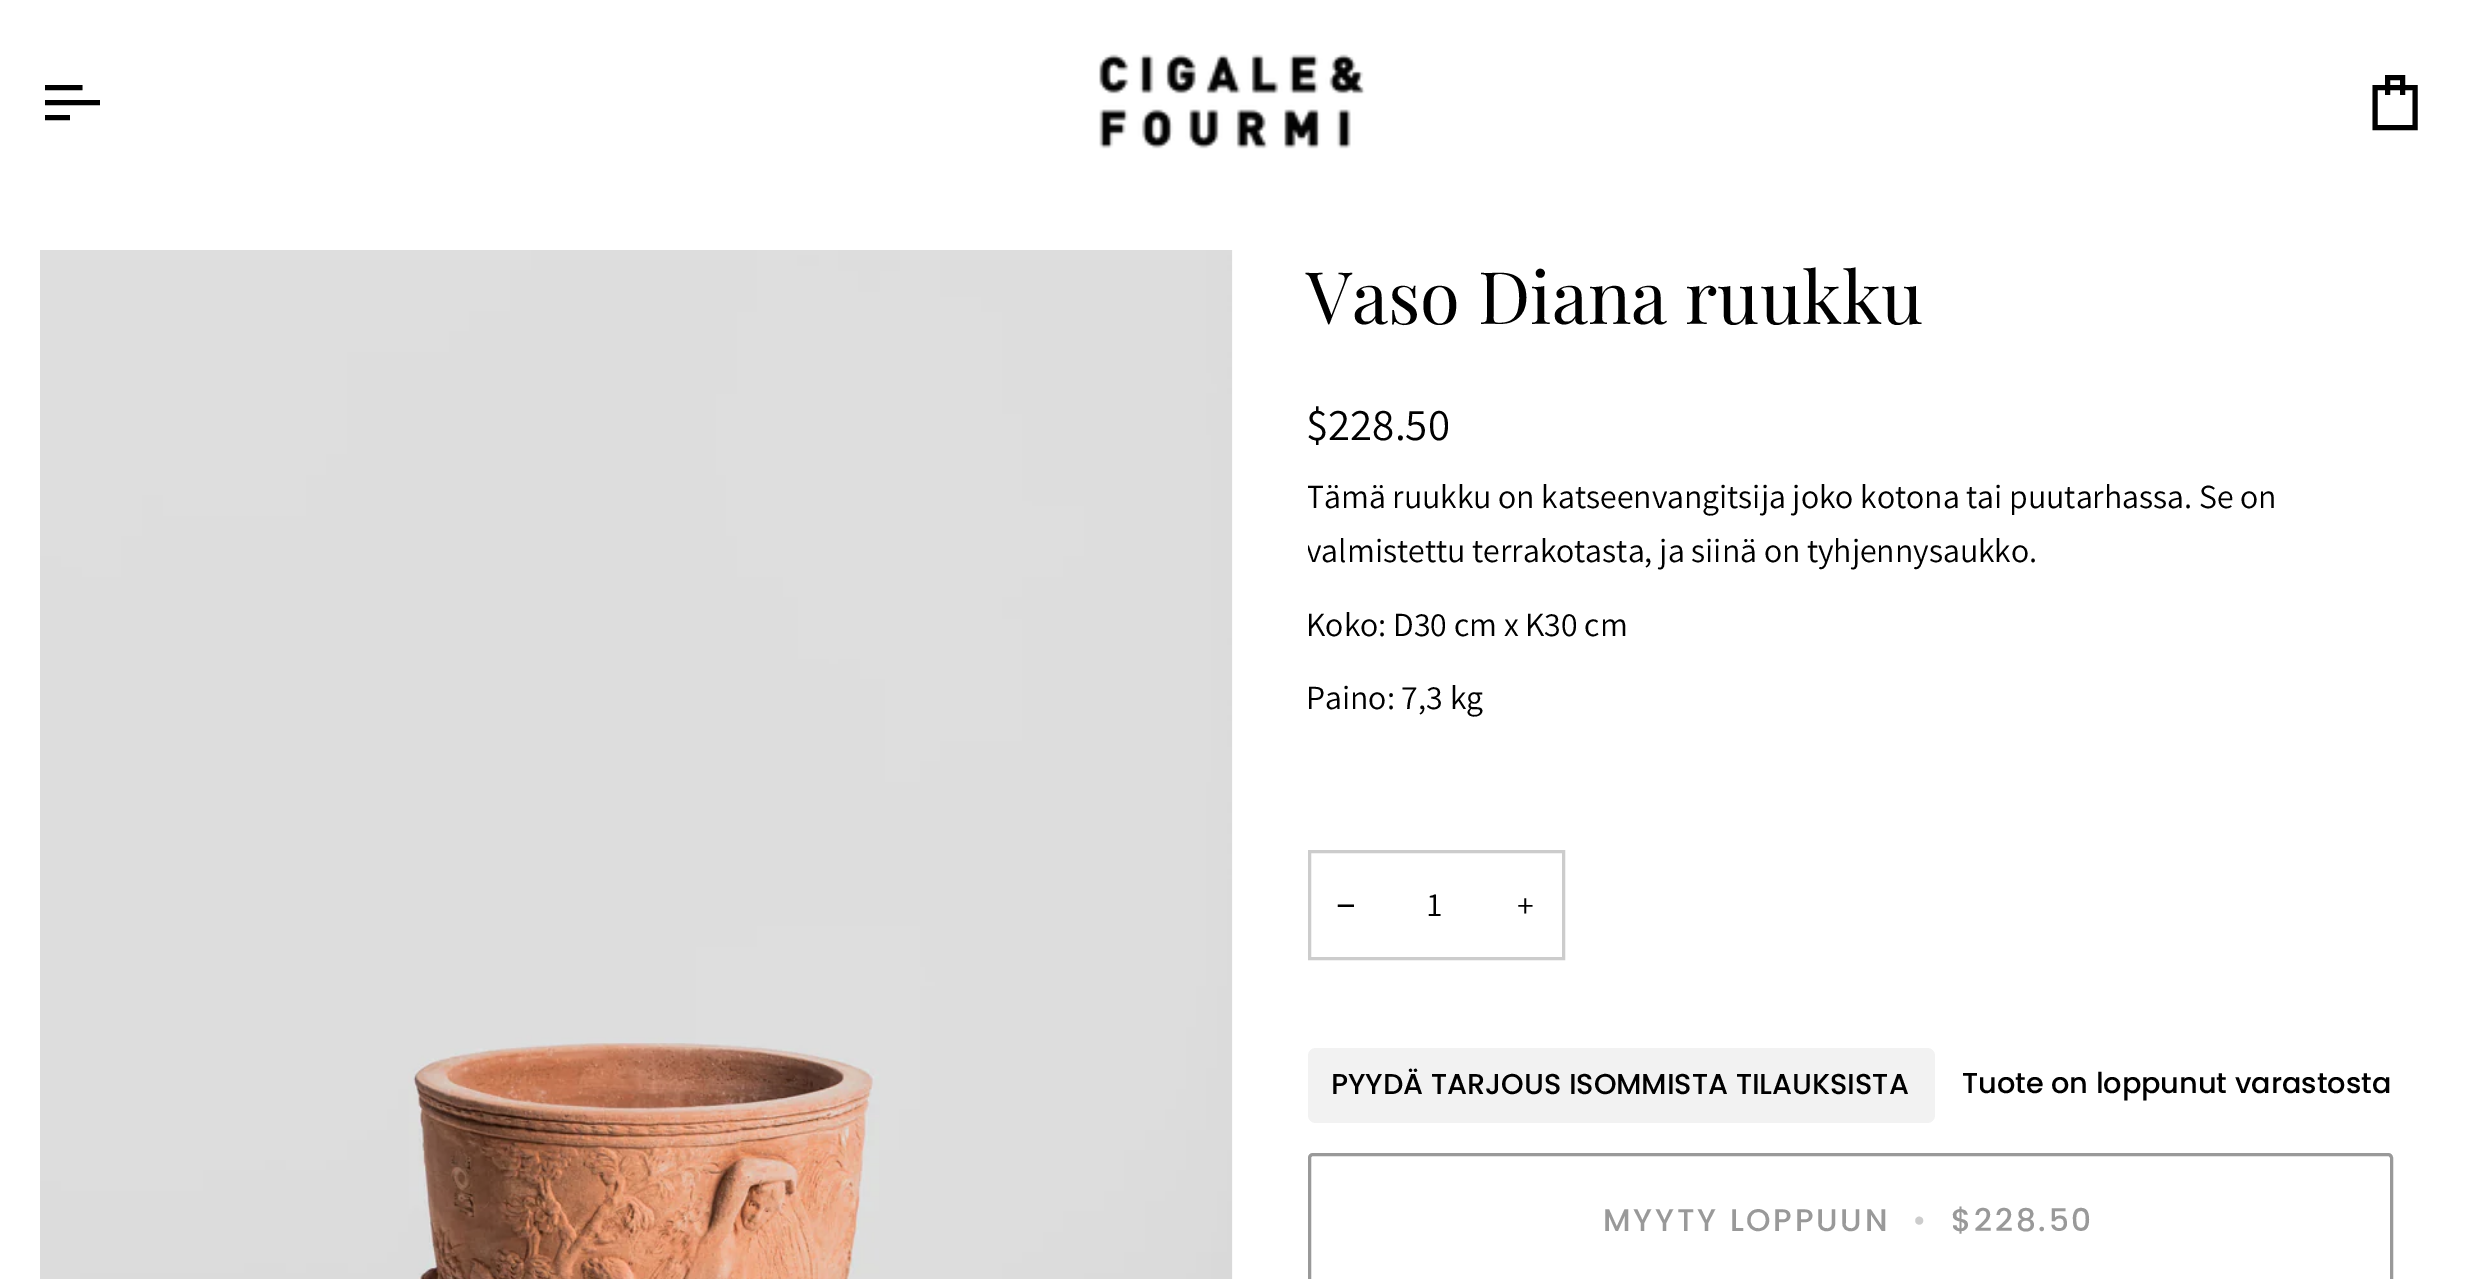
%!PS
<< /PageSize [2465 1279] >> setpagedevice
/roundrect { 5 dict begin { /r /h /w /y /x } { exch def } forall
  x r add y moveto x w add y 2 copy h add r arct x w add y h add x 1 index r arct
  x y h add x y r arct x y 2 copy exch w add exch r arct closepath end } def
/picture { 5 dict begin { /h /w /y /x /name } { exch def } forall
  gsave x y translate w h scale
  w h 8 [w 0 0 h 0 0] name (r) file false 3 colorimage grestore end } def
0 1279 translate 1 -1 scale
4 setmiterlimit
1 setgray
0 0 2465 1279 rectfill
0 setgray
5 setlinewidth
2 setlinecap
newpath 80 87.5 moveto 47.5 87.5 lineto 97.5 102.5 moveto 47.5 102.5 lineto 67.5 117.5 moveto 47.5 117.5 lineto stroke
(img1.rgb) 1099 54 266 95 picture
0 setlinecap
newpath 2375 87.5 moveto 2415 87.5 lineto 2415 127.5 lineto 2375 127.5 lineto closepath 2387.5 95 moveto 2387.5 77.5 lineto 2402.5 77.5 lineto 2402.5 95 lineto stroke
(img2.rgb) 40 250 1193 1029 picture
/PlayfairDisplay-Regular [72.5 0 0 -72.5 0 0] selectfont
1306 324 moveto (Vaso Diana ruukku) show
/Assistant-Regular [45 0 0 -45 0 0] selectfont
1306 440 moveto ($228.50) show
gsave
1308 470 1085 255 rectclip
/Assistant-Regular [33.75 0 0 -33.75 0 0] selectfont
1306 508 moveto (Tämä ruukku on katseenvangitsija joko kotona tai puutarhassa. Se on) show
1306 562 moveto (valmistettu terrakotasta, ja siinä on tyhjennysaukko.) show
grestore
/Assistant-Regular [33.75 0 0 -33.75 0 0] selectfont
1306 636 moveto (Koko: D30 cm x K30 cm) show
1306 709 moveto (Paino: 7,3 kg) show
0.8 setgray
3 setlinewidth
1309.5 851.5 254 107 rectstroke
/LiberationSans-Regular [33.75 0 0 -33.75 0 0] selectfont
0 setgray
1336 917 moveto (−) show
/Assistant-Regular [33.75 0 0 -33.75 0 0] selectfont
1427 916 moveto (1) show
1517 917 moveto (+) show
0.949 setgray
1308 1048 627 75 8 roundrect fill
/Poppins-Medium [28.75 0 0 -28.75 0 0] selectfont
0 setgray
1331 1094 moveto (PYYDÄ TARJOUS ISOMMISTA TILAUKSISTA) show
1962 1093 moveto (Tuote on loppunut varastosta) show
0.6 setgray
1309.5 1154.5 1082 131 3.5 roundrect stroke
/Poppins-Medium [31.25 0 0 -31.25 0 0] selectfont
1603 1231 moveto 2.75 0 (MYYTY LOPPUUN) ashow
0.8 setgray
1912 1231 moveto 2.75 0 (•) ashow
0.6 setgray
1951 1231 moveto 2.75 0 ($228.50) ashow
showpage
